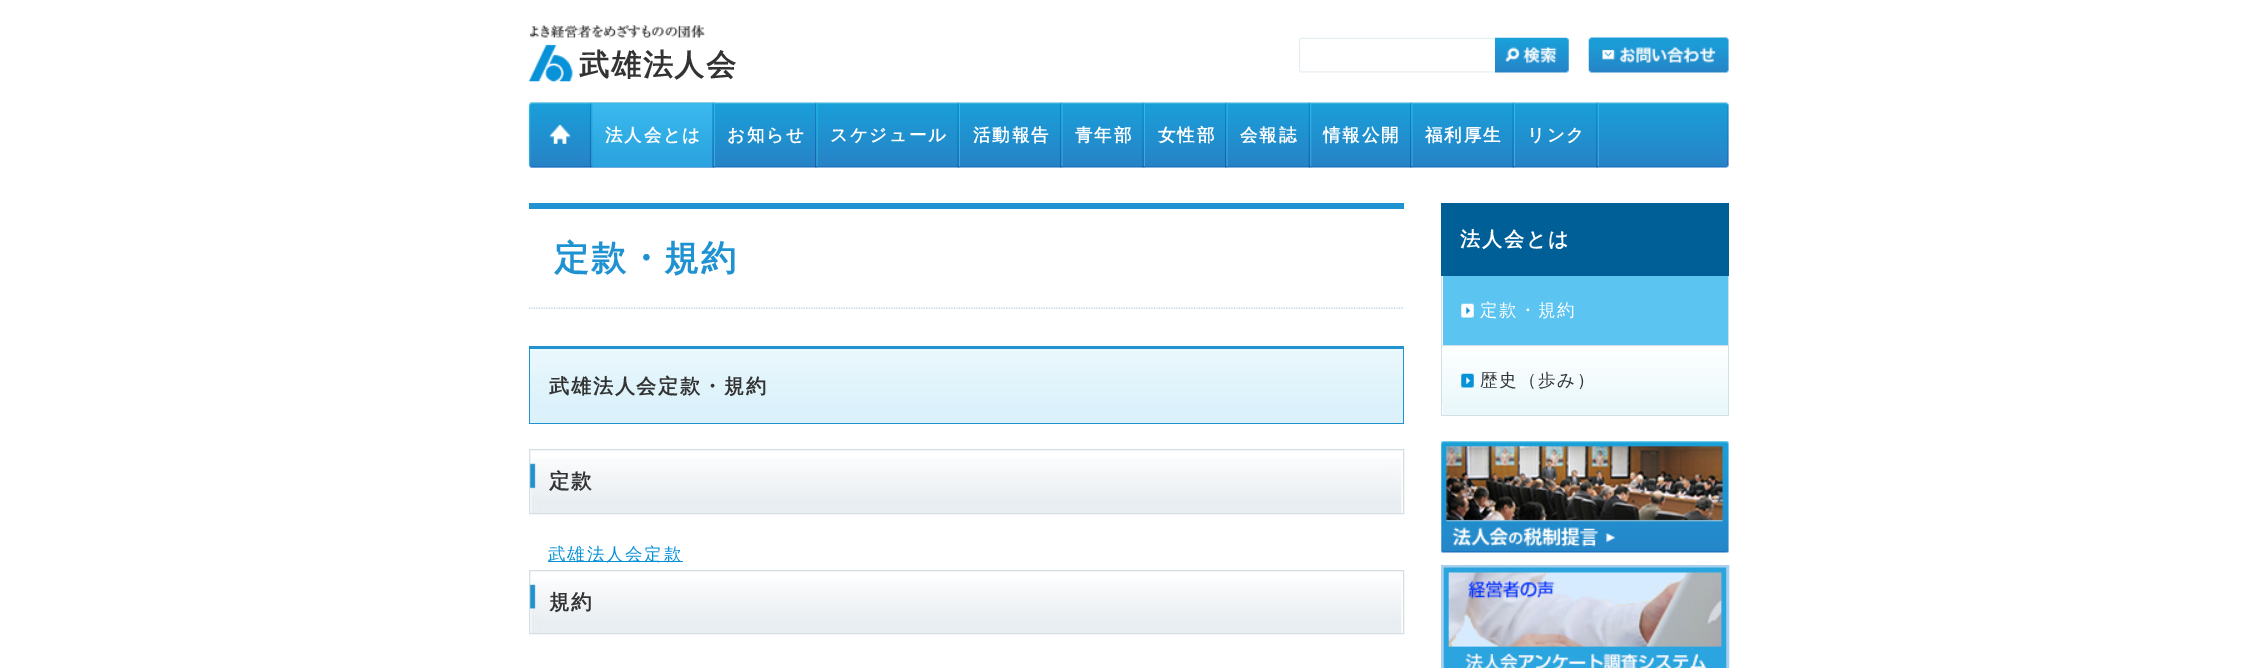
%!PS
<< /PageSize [2257 668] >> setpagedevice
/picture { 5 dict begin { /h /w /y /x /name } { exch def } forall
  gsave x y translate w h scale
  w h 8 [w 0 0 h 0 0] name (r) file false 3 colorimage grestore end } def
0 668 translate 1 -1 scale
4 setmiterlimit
1 setgray
0 0 2257 668 rectfill
(img1.rgb) 528 25 177 57 picture
/WenQuanYiZenHei-Bold [30 0 0 -30 0 0] selectfont
0.2 setgray
579 75 moveto 1.75 0 (武雄法人会) ashow
(img2.rgb) 1299 37 196 36 picture
(img3.rgb) 1495 37 74 36 picture
(img4.rgb) 1588 37 141 36 picture
(img5.rgb) 528 102 1201 66 picture
(img6.rgb) 530 102 63 66 picture
(img7.rgb) 592 102 123 66 picture
(img8.rgb) 712 102 3 66 picture
/WenQuanYiZenHei-Bold [17.5 0 0 -17.5 0 0] selectfont
1 setgray
605 141 moveto 1.75 0 (法人会とは) ashow
(img9.rgb) 815 102 3 66 picture
727 141 moveto 1.75 0 (お知らせ) ashow
(img10.rgb) 957 102 3 66 picture
830 141 moveto 1.75 0 (スケジュール) ashow
(img9.rgb) 1060 102 3 66 picture
973 141 moveto 1.75 0 (活動報告) ashow
(img10.rgb) 1142 102 3 66 picture
1075 141 moveto 1.75 0 (青年部) ashow
(img9.rgb) 1225 102 3 66 picture
1158 141 moveto 1.75 0 (女性部) ashow
(img11.rgb) 1308 102 4 66 picture
1240 141 moveto 1.75 0 (会報誌) ashow
(img9.rgb) 1410 102 3 66 picture
1323 141 moveto 1.75 0 (情報公開) ashow
(img10.rgb) 1512 102 3 66 picture
1425 141 moveto 1.75 0 (福利厚生) ashow
(img12.rgb) 1596 102 3 66 picture
1527 141 moveto 1.75 0 (リンク) ashow
(img13.rgb) 529 307 875 2 picture
0.122 0.576 0.824 setrgbcolor
529 203 875 6 rectfill
/WenQuanYiZenHei-Bold [35 0 0 -35 0 0] selectfont
0.122 0.573 0.824 setrgbcolor
554 270 moveto 1.75 0 (定款・規約) ashow
0.859 0.945 0.984 setrgbcolor
530 412 873 11 rectfill
(img14.rgb) 530 349 873 64 picture
0.125 0.573 0.816 setrgbcolor
529 346 875 3 rectfill
1403 346 1 78 rectfill
529 423 875 1 rectfill
529 346 1 78 rectfill
/WenQuanYiZenHei-Bold [20.1 0 0 -20.1 0 0] selectfont
0.2 setgray
549 393 moveto 1.75 0 (武雄法人会定款・規約) ashow
(img15.rgb) 530 458 872 55 picture
0.831 0.875 0.89 setrgbcolor
529.5 449.5 874 64 rectstroke
/WenQuanYiZenHei-Bold [20.5 0 0 -20.5 0 0] selectfont
0.2 setgray
549 488 moveto 1.75 0 (定款) ashow
0.02 0.569 0.847 setrgbcolor
548 561 135 1 rectfill
/WenQuanYiZenHei-Medium [17.5 0 0 -17.5 0 0] selectfont
548 560 moveto 1.75 0 (武雄法人会定款) ashow
(img16.rgb) 530 579 872 54 picture
0.831 0.875 0.89 setrgbcolor
529.5 570.5 874 63 rectstroke
/WenQuanYiZenHei-Bold [20.5 0 0 -20.5 0 0] selectfont
0.2 setgray
549 609 moveto 1.75 0 (規約) ashow
0.004 0.373 0.596 setrgbcolor
1441 203 288 73 rectfill
/WenQuanYiZenHei-Bold [20.1 0 0 -20.1 0 0] selectfont
1 setgray
1460 246 moveto 1.75 0 (法人会とは) ashow
0.357 0.769 0.941 setrgbcolor
1443 276 285 69 rectfill
0.82 0.878 0.906 setrgbcolor
1728 276 1 140 rectfill
1441 345 288 1 rectfill
1441 276 1 70 rectfill
(img17.rgb) 1461 303 13 15 picture
/WenQuanYiZenHei-Medium [17.5 0 0 -17.5 0 0] selectfont
1 setgray
1480 316 moveto 1.75 0 (定款・規約) ashow
0.922 0.973 0.984 setrgbcolor
1443 346 285 69 rectfill
(img18.rgb) 1442 346 286 59 picture
0.82 0.878 0.906 setrgbcolor
1441 415 288 1 rectfill
1441 346 1 70 rectfill
(img19.rgb) 1461 373 13 15 picture
0.2 setgray
1480 386 moveto 1.75 0 (歴史（歩み）) ashow
(img20.rgb) 1441 441 288 112 picture
0.659 0.816 0.933 setrgbcolor
3 setlinewidth
1442.5 566.5 285 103 rectstroke
(img21.rgb) 1443 567 284 101 picture
showpage
